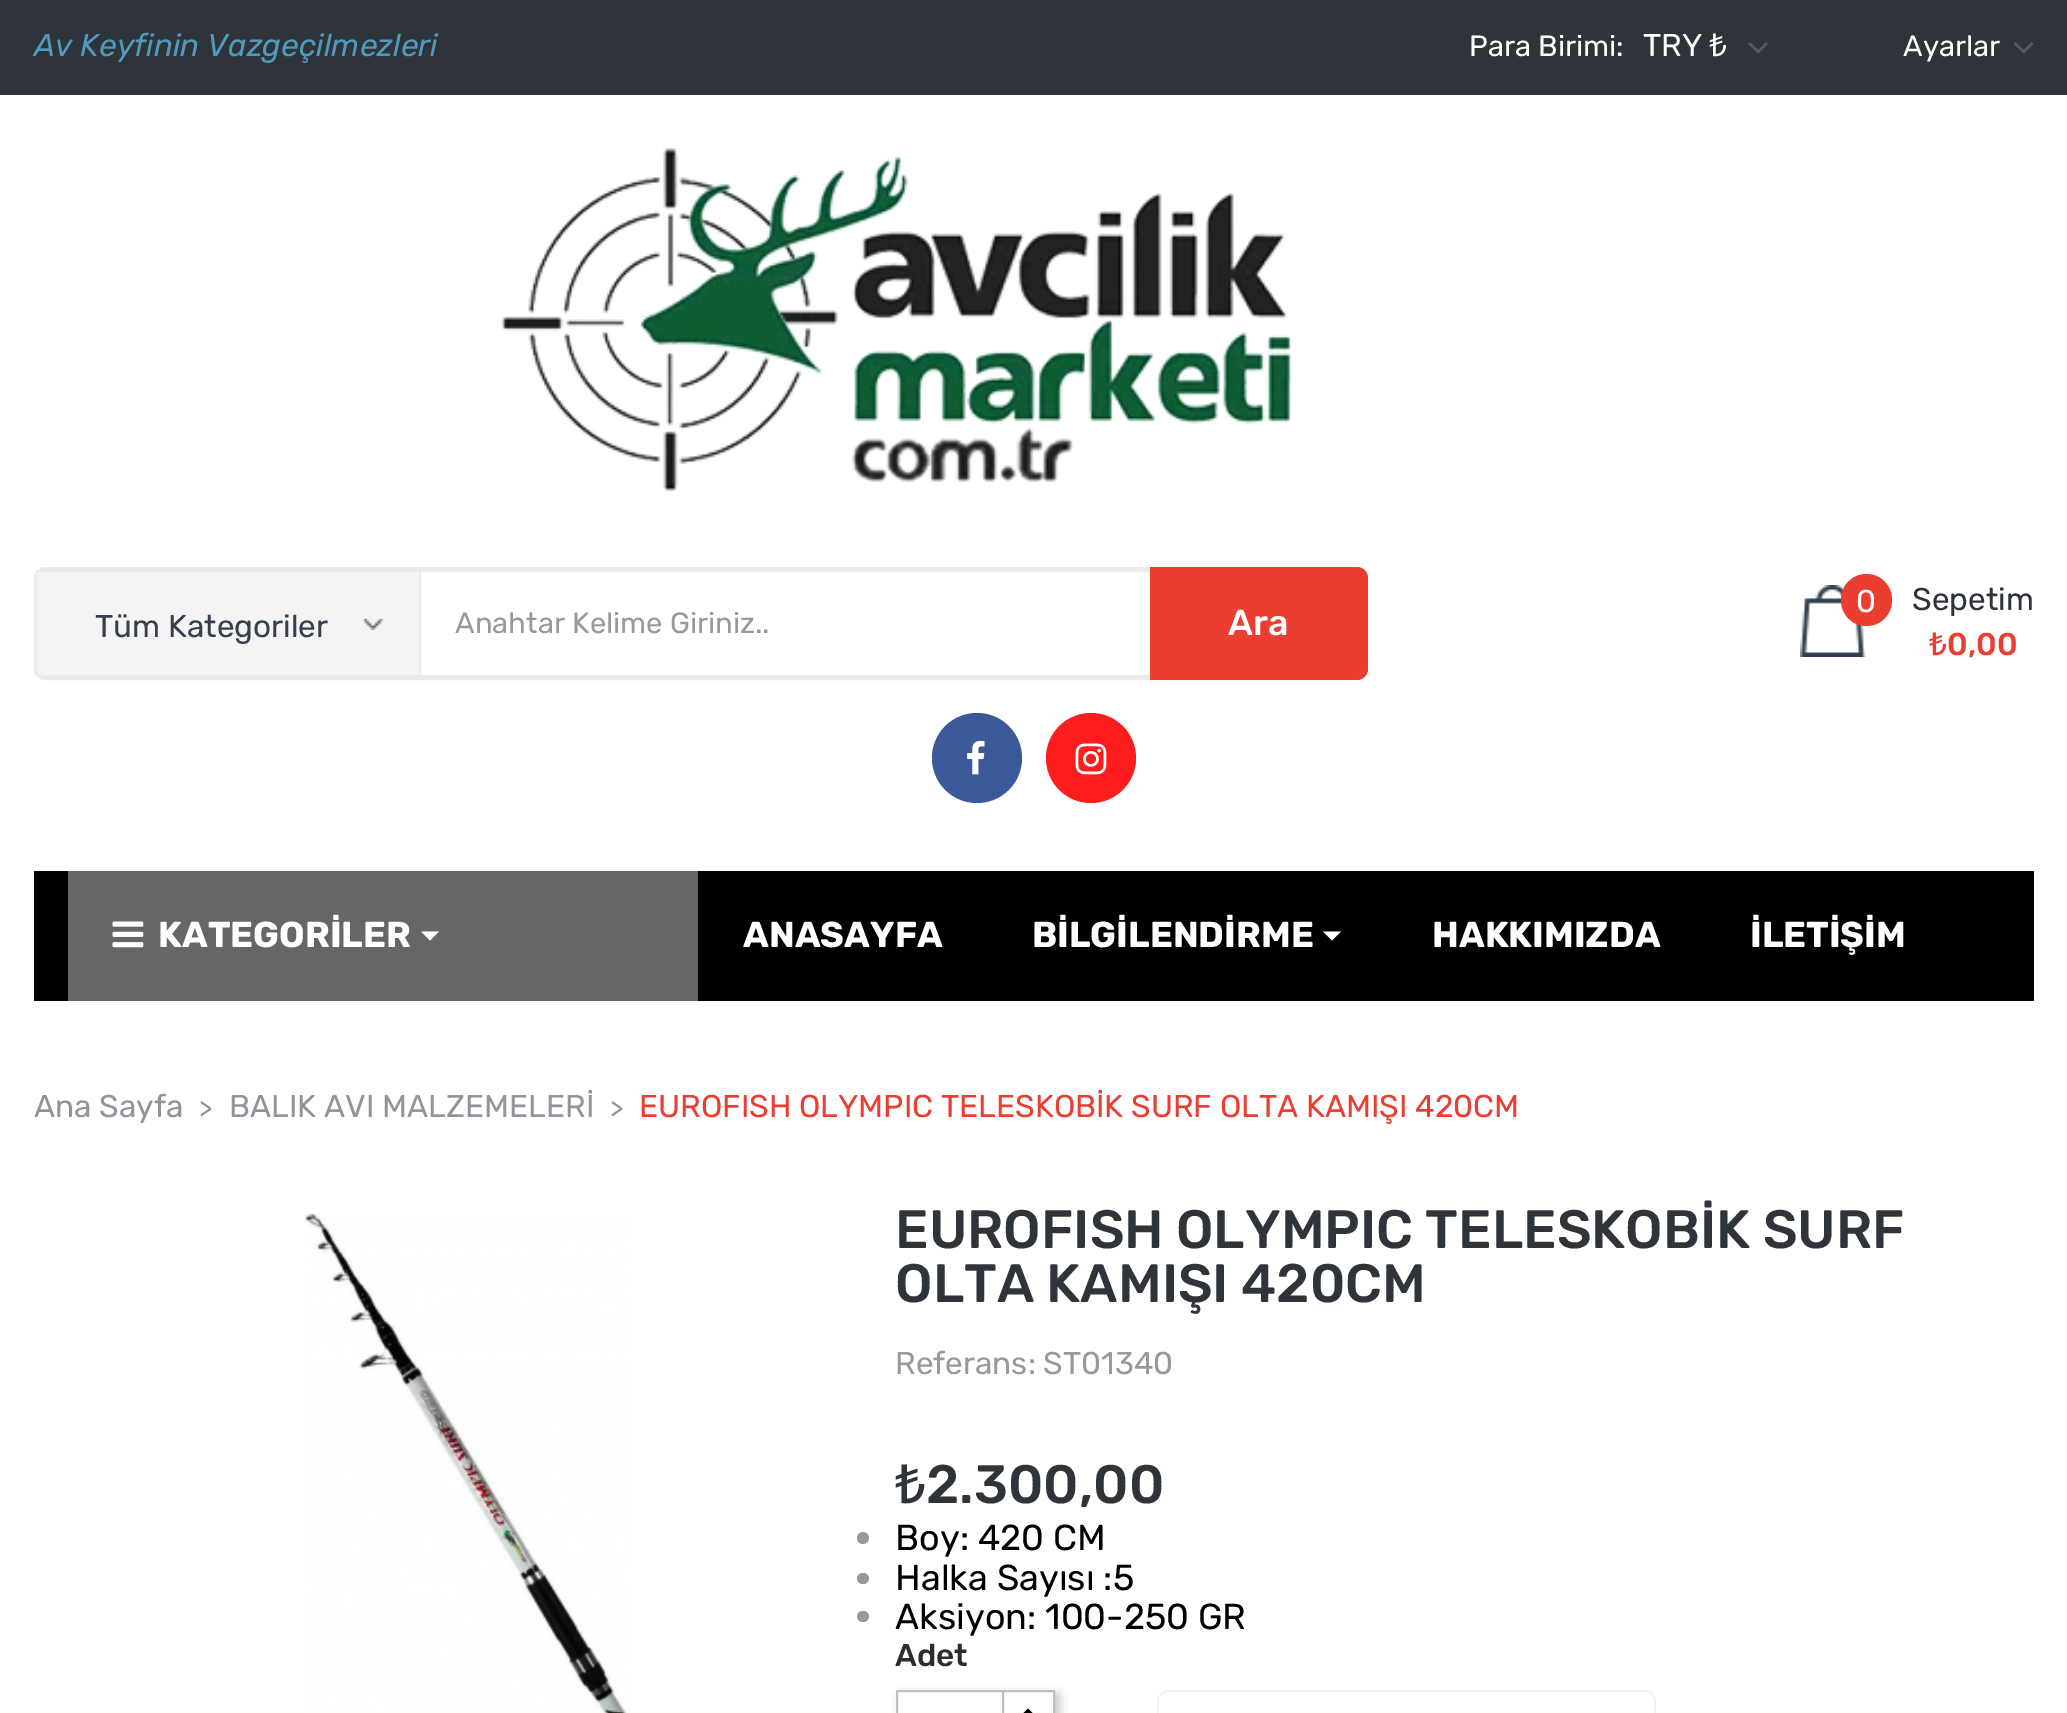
%!PS
<< /PageSize [2067 1713] /PageUsesTransparency true >> setpagedevice
/alpha { dup .setfillconstantalpha .setstrokeconstantalpha } def
/roundrect { 5 dict begin { /r /h /w /y /x } { exch def } forall
  x r add y moveto x w add y 2 copy h add r arct x w add y h add x 1 index r arct
  x y h add x y r arct x y 2 copy exch w add exch r arct closepath end } def
/shadow { 12 dict begin { /a /b /q /h /w /y /x } { exch def } forall gsave /was 0 def
  9 -2 -9 { dup b mul 4 div /e exch def 1 sub .425 mul 2.718 exch exp 1 add a .99 .min exch div /now exch def
    1 1 now sub 1 was sub div sub alpha /was now def
    w h .min e 2 mul add 0 gt { x e sub y e sub w e 2 mul add h e 2 mul add
      q e add b .6 mul add w h .min 2 div e add .min 0 .max roundrect fill } if } for grestore end } def
/picture { 5 dict begin { /h /w /y /x /name } { exch def } forall
  gsave x y translate w h scale
  w h 8 [w 0 0 h 0 0] name (r) file false 3 colorimage grestore end } def
0 .pushpdf14devicefilter
0 1713 translate 1 -1 scale
4 setmiterlimit
1 setgray
0 0 2067 1713 rectfill
0.184 0.2 0.227 setrgbcolor
0 0 2067 95 rectfill
/Rubik-Italic [31.5 0 0 -31.5 0 0] selectfont
0.314 0.604 0.741 setrgbcolor
34 56 moveto (Av Keyfinin Vazgeçilmezleri) show
/Rubik-Regular [29.25 0 0 -29.25 0 0] selectfont
1 setgray
1469 56 moveto (Para Birimi:) show
/Rubik-Regular [31.5 0 0 -31.5 0 0] selectfont
1643 56 moveto (TRY) show
/NotoSans-Regular [31.5 0 0 -31.5 0 0] selectfont
1709 56 moveto (₺) show
(img1.rgb) 1748 42 20 12 picture
/Rubik-Regular [29.25 0 0 -29.25 0 0] selectfont
1903 56 moveto (Ayarlar) show
(img2.rgb) 2014 42 20 12 picture
(img3.rgb) 501 148 791 344 picture
0.922 setgray
5 setlinewidth
36.5 569.5 1329 108 8.5 roundrect stroke
0.957 setgray
38 572 381 103 rectfill
(img4.rgb) 362 618 21 12 picture
0.922 setgray
419 572 2 103 rectfill
/Rubik-Regular [31.5 0 0 -31.5 0 0] selectfont
0.212 0.247 0.302 setrgbcolor
95 637 moveto (Tüm Kategoriler) show
/Rubik-Regular [29.25 0 0 -29.25 0 0] selectfont
0.6 setgray
455 633 moveto (Anahtar Kelime Giriniz..) show
0.922 0.243 0.196 setrgbcolor
newpath 1150 567 moveto 1357 567 lineto 1363 567 1368 572 1368 578 curveto 1368 669 lineto 1368 675 1363 680 1357 680 curveto 1150 680 lineto closepath fill
/Rubik-Medium [36 0 0 -36 0 0] selectfont
1 setgray
1228 635 moveto (Ara) show
(img5.rgb) 1800 585 66 72 picture
0.922 0.243 0.196 setrgbcolor
1841 574 51 52 25.5 roundrect fill
/Rubik-Regular [31.5 0 0 -31.5 0 0] selectfont
1 setgray
1856 612 moveto (0) show
0.184 0.2 0.227 setrgbcolor
1912 610 moveto (Sepetim) show
/NotoSans-Medium [31.5 0 0 -31.5 0 0] selectfont
0.922 0.243 0.196 setrgbcolor
1929 655 moveto (₺) show
/Rubik-Medium [31.5 0 0 -31.5 0 0] selectfont
1947 655 moveto (0,00) show
0.231 0.349 0.596 setrgbcolor
newpath 977 758 45 0 360 arc closepath fill
(img6.rgb) 967 740 18 35 picture
0.992 0.114 0.114 setrgbcolor
newpath 1091 758 45 0 360 arc closepath fill
(img7.rgb) 1075 743 32 32 picture
0 setgray
34 871 2000 130 rectfill
0.4 setgray
68 871 630 130 rectfill
(img8.rgb) 112 921 32 27 picture
/Rubik-Bold [36 0 0 -36 0 0] selectfont
1 setgray
158 947 moveto (KATEGORİLER) show
newpath 421 931.5 moveto 439 931.5 lineto 430 940.5 lineto closepath fill
743 947 moveto (ANASAYFA) show
1032 947 moveto (BİLGİLENDİRME) show
newpath 1323 931.5 moveto 1341 931.5 lineto 1332 940.5 lineto closepath fill
1432 947 moveto (HAKKIMIZDA) show
1750 947 moveto (İLETİŞİM) show
/Rubik-Regular [31.5 0 0 -31.5 0 0] selectfont
0.569 0.584 0.608 setrgbcolor
34 1117 moveto (Ana Sayfa) show
/Rubik-Regular [27 0 0 -27 0 0] selectfont
199 1117 moveto (>) show
/Rubik-Regular [31.5 0 0 -31.5 0 0] selectfont
229 1117 moveto (BALIK AVI MALZEMELERİ) show
/Rubik-Regular [27 0 0 -27 0 0] selectfont
610 1117 moveto (>) show
/Rubik-Regular [31.5 0 0 -31.5 0 0] selectfont
0.922 0.243 0.196 setrgbcolor
639 1117 moveto (EUROFISH OLYMPIC TELESKOBİK SURF OLTA KAMIŞI 420CM) show
(img9.rgb) 304 1213 327 500 picture
/Rubik-Medium [54 0 0 -54 0 0] selectfont
0.184 0.2 0.227 setrgbcolor
895 1248 moveto (EUROFISH OLYMPIC TELESKOBİK SURF) show
895 1302 moveto (OLTA KAMIŞI 420CM) show
/Rubik-Regular [31.5 0 0 -31.5 0 0] selectfont
0.6 setgray
895 1374 moveto (Referans: ST01340) show
/NotoSans-Medium [54 0 0 -54 0 0] selectfont
0.184 0.2 0.227 setrgbcolor
895 1503 moveto (₺) show
/Rubik-Medium [54 0 0 -54 0 0] selectfont
926 1503 moveto (2.300,00) show
0.6 setgray
newpath 863 1538 6 0 360 arc closepath fill
/Rubik-Regular [36 0 0 -36 0 0] selectfont
0 setgray
895 1550 moveto (Boy: 420 CM) show
0.6 setgray
857 1573 12 11 5.5 roundrect fill
0 setgray
895 1590 moveto (Halka Sayısı :5) show
0.6 setgray
857 1611 12 11 5.5 roundrect fill
0 setgray
895 1629 moveto (Aksiyon: 100-250 GR) show
/Rubik-Medium [31.5 0 0 -31.5 0 0] selectfont
0.173 setgray
895 1666 moveto (Adet) show
gsave
newpath 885 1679 moveto 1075 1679 lineto 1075 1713 lineto 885 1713 lineto closepath 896 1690 moveto 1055 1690 lineto 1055 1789 lineto 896 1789 lineto closepath eoclip newpath
0 setgray
900 1694 160 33 0 4.5 0.2 shadow
grestore
0.749 setgray
2 setlinewidth
1002 1691 52 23 rectstroke
1 setgray
1001 1692 1 21 rectfill
0.749 setgray
897 1691 106 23 rectstroke
0 setgray
newpath 1028 1708.5 moveto 1037 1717.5 lineto 1035 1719.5 lineto 1028 1712.5 lineto 1021.5 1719.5 lineto 1019 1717.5 lineto closepath fill
0.949 setgray
1158 1691 497 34 10 roundrect stroke
.poppdf14devicefilter showpage
